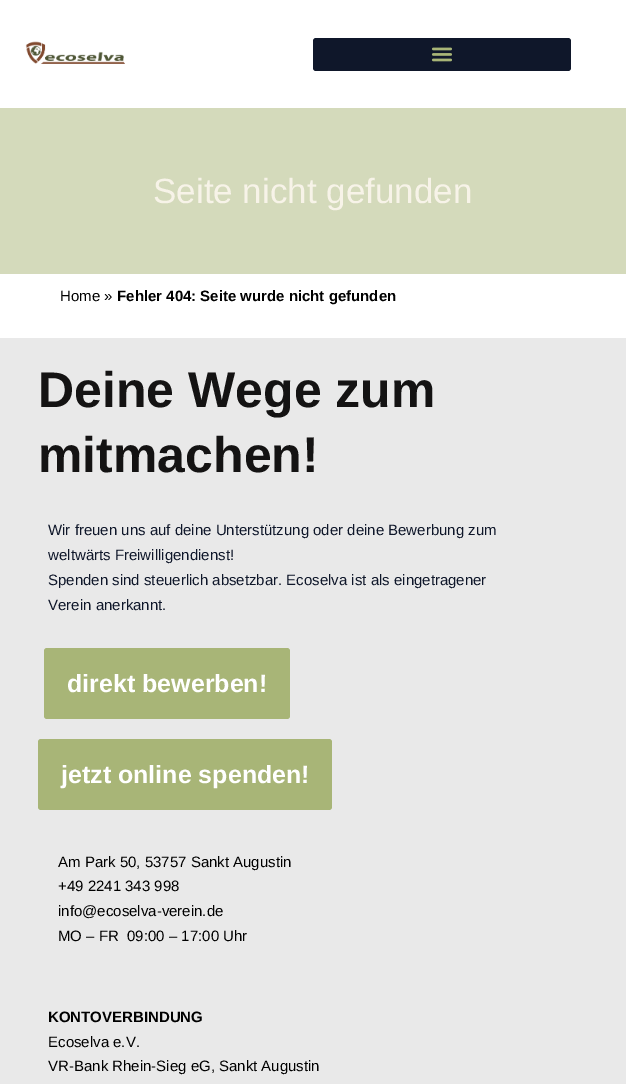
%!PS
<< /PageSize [626 1084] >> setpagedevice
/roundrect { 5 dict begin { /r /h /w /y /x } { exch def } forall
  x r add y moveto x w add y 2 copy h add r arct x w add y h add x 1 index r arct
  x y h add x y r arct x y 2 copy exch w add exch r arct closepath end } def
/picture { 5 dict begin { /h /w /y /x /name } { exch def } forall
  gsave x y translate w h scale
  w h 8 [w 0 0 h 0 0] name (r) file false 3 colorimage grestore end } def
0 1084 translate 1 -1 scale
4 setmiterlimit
1 setgray
0 0 626 1084 rectfill
(img1.rgb) 25 41 100 23 picture
0.059 0.09 0.165 setrgbcolor
313 38 258 33 3 roundrect fill
(img2.rgb) 431 47 21 15 picture
0.831 0.855 0.733 setrgbcolor
0 108 626 166 rectfill
/LiberationSans-Regular [35 0 0 -35 0 0] selectfont
0.969 0.953 0.91 setrgbcolor
153 203 moveto (Seite nicht gefunden) show
/LiberationSans-Regular [15 0 0 -15 0 0] selectfont
0 setgray
60 301 moveto (Home ») show
/LiberationSans-Bold [15 0 0 -15 0 0] selectfont
117 301 moveto (Fehler 404: Seite wurde nicht gefunden) show
0.914 setgray
0 338 626 746 rectfill
/LiberationSans-Bold [50 0 0 -50 0 0] selectfont
0.078 0.075 0.075 setrgbcolor
38 407 moveto (Deine Wege zum) show
38 472 moveto (mitmachen!) show
/LiberationSans-Regular [15 0 0 -15 0 0] selectfont
0.059 0.09 0.165 setrgbcolor
48 535 moveto (Wir freuen uns auf deine Unterstützung oder deine Bewerbung zum) show
48 560 moveto (weltwärts Freiwilligendienst!) show
48 585 moveto (Spenden sind steuerlich absetzbar. Ecoselva ist als eingetragener) show
48 610 moveto (Verein anerkannt.) show
0.659 0.71 0.467 setrgbcolor
44 648 246 71 3 roundrect fill
/LiberationSans-Bold [25 0 0 -25 0 0] selectfont
1 setgray
67 692 moveto (direkt bewerben!) show
0.659 0.71 0.467 setrgbcolor
38 739 294 71 3 roundrect fill
1 setgray
61 783 moveto (jetzt online spenden!) show
/LiberationSans-Regular [15 0 0 -15 0 0] selectfont
0 setgray
58 867 moveto (Am Park 50, 53757 Sankt Augustin) show
58 891 moveto (+49 2241 343 998) show
58 916 moveto (info@ecoselva-verein.de) show
58 941 moveto (MO – FR  09:00 – 17:00 Uhr) show
/LiberationSans-Bold [15 0 0 -15 0 0] selectfont
48 1022 moveto (KONTOVERBINDUNG) show
/LiberationSans-Regular [15 0 0 -15 0 0] selectfont
48 1047 moveto (Ecoselva e.V.) show
48 1071 moveto (VR-Bank Rhein-Sieg eG, Sankt Augustin) show
showpage
